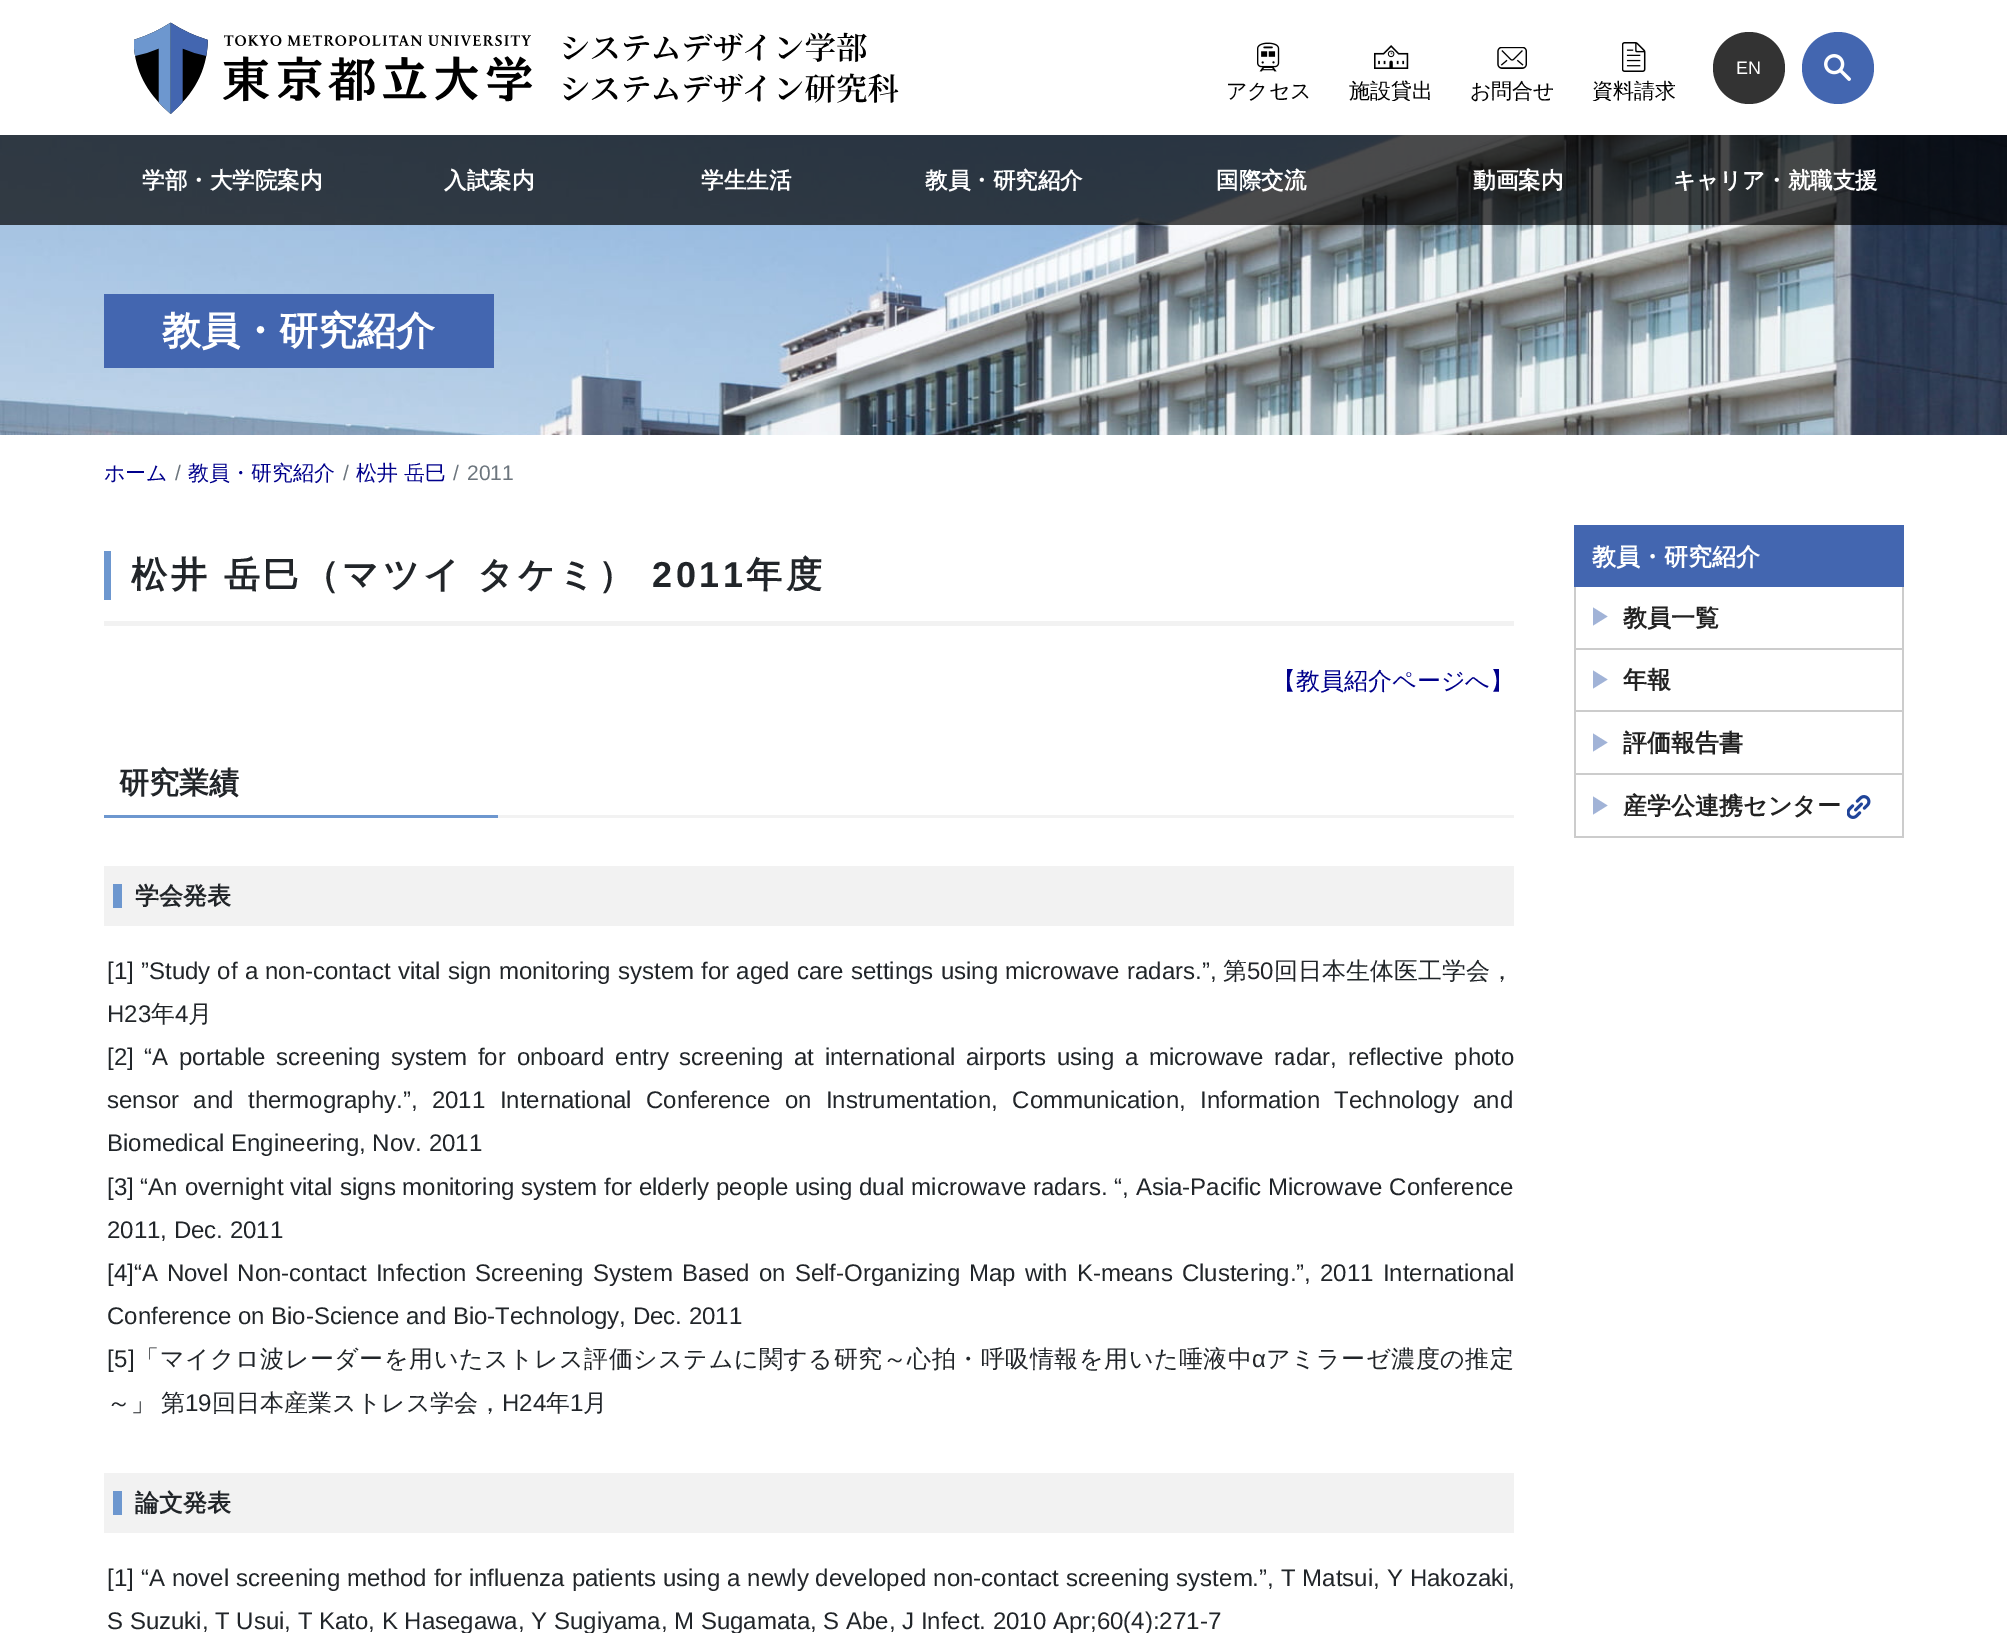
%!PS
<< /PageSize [2007 1633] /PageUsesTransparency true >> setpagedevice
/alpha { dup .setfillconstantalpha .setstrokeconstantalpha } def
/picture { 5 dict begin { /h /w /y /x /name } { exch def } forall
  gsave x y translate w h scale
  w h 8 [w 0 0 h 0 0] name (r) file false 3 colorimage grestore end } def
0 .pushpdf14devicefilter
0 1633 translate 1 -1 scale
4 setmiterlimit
1 setgray
0 0 2007 1633 rectfill
(img1.rgb) 134 22 765 92 picture
0.2 setgray
newpath 1749 68 36 0 360 arc closepath fill
/LiberationSans-Regular [18 0 0 -18 0 0] selectfont
1 setgray
1736 74 moveto (EN) show
0.263 0.4 0.69 setrgbcolor
newpath 1838 68 36 0 360 arc closepath fill
(img2.rgb) 1824 54 27 27 picture
(img3.rgb) 1257 42 23 30 picture
/WenQuanYiZenHei-Medium [21 0 0 -21 0 0] selectfont
0 setgray
1226 98 moveto (アクセス) show
(img4.rgb) 1374 45 35 24 picture
gsave
1349 35 84 66 rectclip
1349 98 moveto (施設貸出) show
grestore
(img5.rgb) 1497 47 30 22 picture
1470 98 moveto (お問合せ) show
(img6.rgb) 1622 42 24 30 picture
gsave
1592 35 84 66 rectclip
1592 98 moveto (資料請求) show
grestore
(img7.rgb) 0 135 2007 300 picture
0.7 alpha
0 135 2007 90 rectfill
/WenQuanYiZenHei-Bold [22.5 0 0 -22.5 0 0] selectfont
1 alpha
1 setgray
142 188 moveto (学部・大学院案内) show
444 188 moveto (入試案内) show
701 188 moveto (学生生活) show
925 188 moveto (教員・研究紹介) show
1216 188 moveto (国際交流) show
1473 188 moveto (動画案内) show
1673 188 moveto (キャリア・就職支援) show
0.263 0.4 0.69 setrgbcolor
104 294 390 74 rectfill
/WenQuanYiZenHei-Bold [39 0 0 -39 0 0] selectfont
1 setgray
162 344 moveto (教員・研究紹介) show
/WenQuanYiZenHei-Medium [21 0 0 -21 0 0] selectfont
0 0 0.545 setrgbcolor
104 480 moveto (ホーム) show
/LiberationSans-Regular [21 0 0 -21 0 0] selectfont
0.424 0.459 0.49 setrgbcolor
175 480 moveto (/) show
/WenQuanYiZenHei-Medium [21 0 0 -21 0 0] selectfont
0 0 0.545 setrgbcolor
188 480 moveto (教員・研究紹介) show
/LiberationSans-Regular [21 0 0 -21 0 0] selectfont
0.424 0.459 0.49 setrgbcolor
343 480 moveto (/) show
/WenQuanYiZenHei-Medium [21 0 0 -21 0 0] selectfont
0 0 0.545 setrgbcolor
356 480 moveto (松井 岳巳) show
/LiberationSans-Regular [21 0 0 -21 0 0] selectfont
0.424 0.459 0.49 setrgbcolor
453 480 moveto (/) show
467 480 moveto (2011) show
0.949 setgray
104 621 1410 5 rectfill
0.427 0.592 0.812 setrgbcolor
104 551 7 49 rectfill
/WenQuanYiZenHei-Bold [36 0 0 -36 0 0] selectfont
0.129 0.145 0.161 setrgbcolor
131 587 moveto -1 0 32 3.6 0 (松井 岳巳（マツイ タケミ）) awidthshow
/LiberationSans-Bold [36 0 0 -36 0 0] selectfont
652 587 moveto 3.6 0 (2011) ashow
/WenQuanYiZenHei-Bold [36 0 0 -36 0 0] selectfont
746 587 moveto 3.6 0 (年度) ashow
/WenQuanYiZenHei-Medium [24 0 0 -24 0 0] selectfont
0 0 0.545 setrgbcolor
1272 689 moveto (【教員紹介ページへ】) show
0.949 setgray
498 815 1016 3 rectfill
/WenQuanYiZenHei-Bold [30 0 0 -30 0 0] selectfont
0.129 0.145 0.161 setrgbcolor
119 793 moveto (研究業績) show
0.427 0.592 0.812 setrgbcolor
104 815 394 3 rectfill
0.949 setgray
104 866 1410 60 rectfill
0.427 0.592 0.812 setrgbcolor
113 884 9 24 rectfill
/WenQuanYiZenHei-Bold [24 0 0 -24 0 0] selectfont
0.129 0.145 0.161 setrgbcolor
135 904 moveto (学会発表) show
/LiberationSans-Regular [24 0 0 -24 0 0] selectfont
107 979 moveto 0.5 0 32 ([1] ”Study of a non-contact vital sign monitoring system for aged care settings using microwave radars.”,) widthshow
/WenQuanYiZenHei-Medium [24 0 0 -24 0 0] selectfont
1223 979 moveto (第) show
/LiberationSans-Regular [24 0 0 -24 0 0] selectfont
1247 979 moveto (50) show
/WenQuanYiZenHei-Medium [24 0 0 -24 0 0] selectfont
1274 979 moveto (回日本生体医工学会，) show
/LiberationSans-Regular [24 0 0 -24 0 0] selectfont
107 1022 moveto (H23) show
/WenQuanYiZenHei-Medium [24 0 0 -24 0 0] selectfont
151 1022 moveto (年) show
/LiberationSans-Regular [24 0 0 -24 0 0] selectfont
175 1022 moveto (4) show
/WenQuanYiZenHei-Medium [24 0 0 -24 0 0] selectfont
188 1022 moveto (月) show
/LiberationSans-Regular [24 0 0 -24 0 0] selectfont
107 1065 moveto 4 0 32 ([2] “A portable screening system for onboard entry screening at international airports using a microwave radar, reflective photo) widthshow
107 1108 moveto 7.75 0 32 (sensor and thermography.”, 2011 International Conference on Instrumentation, Communication, Information Technology and) widthshow
107 1151 moveto (Biomedical Engineering, Nov. 2011) show
107 1195 moveto 0.1 0 32 ([3] “An overnight vital signs monitoring system for elderly people using dual microwave radars. “, Asia-Pacific Microwave Conference) widthshow
107 1238 moveto (2011, Dec. 2011) show
107 1281 moveto 2.4 0 32 ([4]“A Novel Non-contact Infection Screening System Based on Self-Organizing Map with K-means Clustering.”, 2011 International) widthshow
107 1324 moveto (Conference on Bio-Science and Bio-Technology, Dec. 2011) show
107 1367 moveto 0.55 0 ([5]) ashow
/WenQuanYiZenHei-Medium [24 0 0 -24 0 0] selectfont
135 1367 moveto 0.55 0 (「マイクロ波レーダーを用いたストレス評価システムに関する研究～心拍・呼吸情報を用いた唾液中) ashow
/LiberationSans-Regular [24 0 0 -24 0 0] selectfont
1252 1367 moveto 0.55 0 (α) ashow
/WenQuanYiZenHei-Medium [24 0 0 -24 0 0] selectfont
1266 1367 moveto 0.55 0 (アミラーゼ濃度の推定) ashow
107 1411 moveto -1 0 32 (～」 第) widthshow
/LiberationSans-Regular [24 0 0 -24 0 0] selectfont
185 1411 moveto (19) show
/WenQuanYiZenHei-Medium [24 0 0 -24 0 0] selectfont
212 1411 moveto (回日本産業ストレス学会，) show
/LiberationSans-Regular [24 0 0 -24 0 0] selectfont
502 1411 moveto (H24) show
/WenQuanYiZenHei-Medium [24 0 0 -24 0 0] selectfont
546 1411 moveto (年) show
/LiberationSans-Regular [24 0 0 -24 0 0] selectfont
570 1411 moveto (1) show
/WenQuanYiZenHei-Medium [24 0 0 -24 0 0] selectfont
583 1411 moveto (月) show
0.949 setgray
104 1473 1410 60 rectfill
0.427 0.592 0.812 setrgbcolor
113 1491 9 24 rectfill
/WenQuanYiZenHei-Bold [24 0 0 -24 0 0] selectfont
0.129 0.145 0.161 setrgbcolor
135 1511 moveto (論文発表) show
/LiberationSans-Regular [24 0 0 -24 0 0] selectfont
107 1586 moveto 0.25 0 32 ([1] “A novel screening method for influenza patients using a newly developed non-contact screening system.”, T Matsui, Y Hakozaki,) widthshow
107 1629 moveto (S Suzuki, T Usui, T Kato, K Hasegawa, Y Sugiyama, M Sugamata, S Abe, J Infect. 2010 Apr;60\(4\):271-7) show
0.263 0.4 0.69 setrgbcolor
1574 525 330 62 rectfill
/WenQuanYiZenHei-Bold [24 0 0 -24 0 0] selectfont
1 setgray
1592 565 moveto (教員・研究紹介) show
0.8 setgray
1902 587 2 124 rectfill
1574 648 330 2 rectfill
1574 587 2 63 rectfill
0.631 0.702 0.843 setrgbcolor
newpath 1607.5 616.5 moveto 1593 607.5 lineto 1593 625.5 lineto closepath fill
0.133 setgray
1623 626 moveto (教員一覧) show
0.8 setgray
1574 710 330 2 rectfill
1574 650 2 61 rectfill
0.631 0.702 0.843 setrgbcolor
newpath 1607.5 679.5 moveto 1593 670.5 lineto 1593 688.5 lineto closepath fill
0.133 setgray
1623 688 moveto (年報) show
0.8 setgray
1902 711 2 63 rectfill
1574 773 330 2 rectfill
1574 711 2 63 rectfill
0.631 0.702 0.843 setrgbcolor
newpath 1607.5 742.5 moveto 1593 733.5 lineto 1593 751.5 lineto closepath fill
0.133 setgray
1623 751 moveto (評価報告書) show
0.8 setgray
1902 774 2 63 rectfill
1574 836 330 2 rectfill
1574 774 2 63 rectfill
0.631 0.702 0.843 setrgbcolor
newpath 1607.5 805.5 moveto 1593 796.5 lineto 1593 814.5 lineto closepath fill
0.133 setgray
1623 814 moveto (産学公連携センター) show
(img8.rgb) 1847 795 24 24 picture
.poppdf14devicefilter showpage
